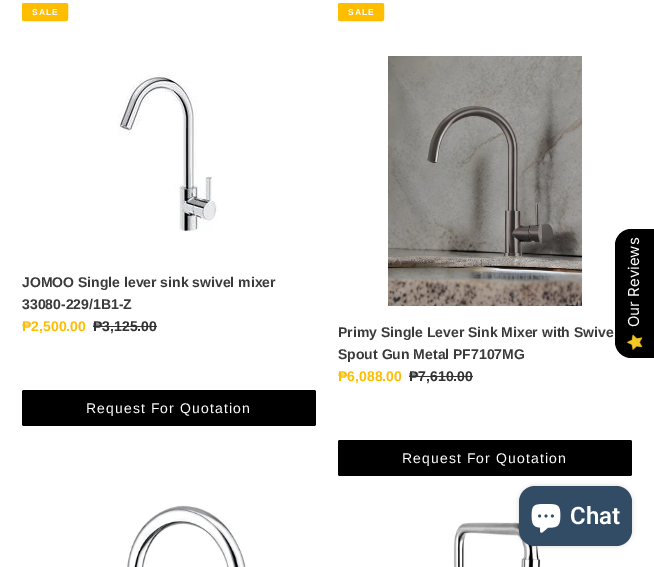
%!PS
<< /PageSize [654 567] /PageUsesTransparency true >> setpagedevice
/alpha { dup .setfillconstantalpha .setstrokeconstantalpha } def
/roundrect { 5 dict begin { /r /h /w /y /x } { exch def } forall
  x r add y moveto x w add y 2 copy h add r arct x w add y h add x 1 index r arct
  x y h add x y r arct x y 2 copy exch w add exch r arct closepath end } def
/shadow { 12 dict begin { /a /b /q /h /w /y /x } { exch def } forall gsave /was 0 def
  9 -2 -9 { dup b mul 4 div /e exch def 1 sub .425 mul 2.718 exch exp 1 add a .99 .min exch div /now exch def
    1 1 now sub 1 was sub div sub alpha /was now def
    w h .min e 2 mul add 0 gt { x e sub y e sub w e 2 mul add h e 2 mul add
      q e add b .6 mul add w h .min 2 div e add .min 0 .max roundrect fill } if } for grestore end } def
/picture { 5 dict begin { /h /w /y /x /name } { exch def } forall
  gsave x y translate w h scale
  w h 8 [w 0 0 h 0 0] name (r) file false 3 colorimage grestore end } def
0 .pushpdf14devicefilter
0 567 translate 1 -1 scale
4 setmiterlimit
1 setgray
0 0 654 567 rectfill
1 0.741 0 setrgbcolor
22.5 3.5 45 17 1.5 roundrect gsave fill grestore
stroke
/LiberationSans-Bold [8.5 0 0 -8.5 0 0] selectfont
1 setgray
32 15 moveto 1 0 (SALE) ashow
1 0.741 0 setrgbcolor
338.5 3.5 45 17 1.5 roundrect gsave fill grestore
stroke
1 setgray
348 15 moveto 1 0 (SALE) ashow
(img1.rgb) 117 72 102 160 picture
/LiberationSans-Bold [14 0 0 -14 0 0] selectfont
0.227 setgray
22 287 moveto (JOMOO Single lever sink swivel mixer) show
22 309 moveto (33080-229/1B1-Z) show
1 0.741 0 setrgbcolor
22 331 moveto (₱2,500.00) show
0.2 0.196 0.196 setrgbcolor
93 331 moveto (₱3,125.00) show
93 326 64 1 rectfill
0 setgray
22 390 294 36 2 roundrect fill
/LiberationSans-Regular [14 0 0 -14 0 0] selectfont
1 setgray
86 413 moveto 1.1 0 (Request For Quotation) ashow
(img2.rgb) 388 56 194 250 picture
/LiberationSans-Bold [14 0 0 -14 0 0] selectfont
0.227 setgray
338 337 moveto (Primy Single Lever Sink Mixer with Swive) show
338 359 moveto (Spout Gun Metal PF7107MG) show
1 0.741 0 setrgbcolor
338 381 moveto (₱6,088.00) show
0.2 0.196 0.196 setrgbcolor
409 381 moveto (₱7,610.00) show
409 376 64 1 rectfill
0 setgray
338 440 294 36 2 roundrect fill
/LiberationSans-Regular [14 0 0 -14 0 0] selectfont
1 setgray
402 463 moveto 1.1 0 (Request For Quotation) ashow
(img3.rgb) 127 505 119 62 picture
(img4.rgb) 453 522 88 45 picture
0 setgray
newpath 615 342 moveto 615 245 lineto 615 236 623 229 631 229 curveto 654 229 lineto 654 358 lineto 631 358 lineto 623 358 615 351 615 342 curveto closepath fill
/Inter-Regular [15 0 0 -15 0 0] selectfont
1 setgray
gsave 639 327 translate -90 rotate 0 0 moveto (Our Reviews) show grestore
(img5.rgb) 626 334 17 16 picture
0 setgray
519 486 113 60 16 2.5 0.15 shadow
0.2 0.298 0.4 setrgbcolor
519 486 113 60 16 roundrect fill
(img6.rgb) 531 504 30 29 picture
/Roboto-SemiBold [24 0 0 -24 0 0] selectfont
1 setgray
570 524 moveto (Chat) show
.poppdf14devicefilter showpage
